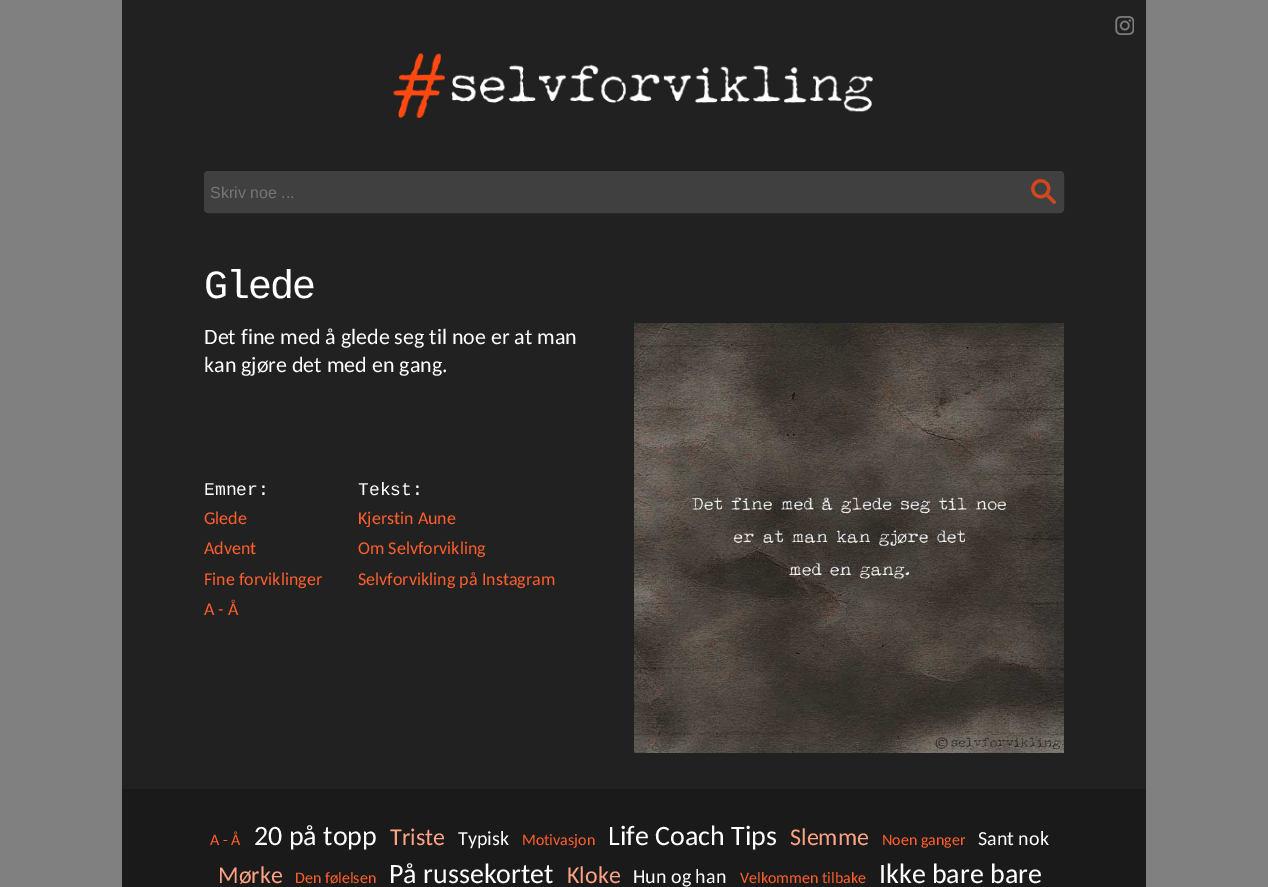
%!PS
<< /PageSize [1268 887] >> setpagedevice
/roundrect { 5 dict begin { /r /h /w /y /x } { exch def } forall
  x r add y moveto x w add y 2 copy h add r arct x w add y h add x 1 index r arct
  x y h add x y r arct x y 2 copy exch w add exch r arct closepath end } def
/picture { 5 dict begin { /h /w /y /x /name } { exch def } forall
  gsave x y translate w h scale
  w h 8 [w 0 0 h 0 0] name (r) file false 3 colorimage grestore end } def
0 887 translate 1 -1 scale
4 setmiterlimit
0.502 setgray
0 0 1268 887 rectfill
0.129 setgray
122 0 1024 789 rectfill
(img1.rgb) 1115 16 19 19 picture
(img2.rgb) 393 53 480 65 picture
0.251 setgray
204.5 171.5 859 41 3.5 roundrect gsave fill grestore
stroke
/LiberationSans-Regular [16 0 0 -16 0 0] selectfont
0.459 setgray
210 198 moveto (Skriv noe ...) show
(img3.rgb) 1031 179 25 25 picture
/LiberationMono-Regular [40 0 0 -40 0 0] selectfont
1 setgray
204 298 moveto -2 0 (Glede) ashow
/Carlito-Regular [22 0 0 -22 0 0] selectfont
204 344 moveto (Det fine med å glede seg til noe er at man) show
204 372 moveto (kan gjøre det med en gang.) show
/LiberationMono-Regular [18 0 0 -18 0 0] selectfont
204 495 moveto (Emner:) show
/Carlito-Regular [18 0 0 -18 0 0] selectfont
1 0.373 0.18 setrgbcolor
204 524 moveto (Glede) show
204 554 moveto (Advent) show
204 585 moveto (Fine forviklinger) show
204 615 moveto (A - Å) show
/LiberationMono-Regular [18 0 0 -18 0 0] selectfont
1 setgray
358 495 moveto (Tekst:) show
/Carlito-Regular [18 0 0 -18 0 0] selectfont
1 0.373 0.18 setrgbcolor
358 524 moveto (Kjerstin Aune) show
358 554 moveto (Om Selvforvikling) show
358 585 moveto (Selvforvikling på Instagram) show
(img4.rgb) 634 323 430 430 picture
0.102 setgray
122 789 1024 98 rectfill
/Carlito-Regular [16 0 0 -16 0 0] selectfont
1 0.373 0.18 setrgbcolor
210 845 moveto (A - Å) show
/Carlito-Regular [28 0 0 -28 0 0] selectfont
1 setgray
254 845 moveto (20 på topp) show
/Carlito-Regular [24 0 0 -24 0 0] selectfont
1 0.639 0.522 setrgbcolor
390 845 moveto (Triste) show
/Carlito-Regular [20 0 0 -20 0 0] selectfont
1 setgray
458 845 moveto (Typisk) show
/Carlito-Regular [16 0 0 -16 0 0] selectfont
1 0.373 0.18 setrgbcolor
522 845 moveto (Motivasjon) show
/Carlito-Regular [28 0 0 -28 0 0] selectfont
1 setgray
608 845 moveto (Life Coach Tips) show
/Carlito-Regular [24 0 0 -24 0 0] selectfont
1 0.639 0.522 setrgbcolor
790 845 moveto (Slemme) show
/Carlito-Regular [16 0 0 -16 0 0] selectfont
1 0.373 0.18 setrgbcolor
882 845 moveto (Noen ganger) show
/Carlito-Regular [20 0 0 -20 0 0] selectfont
1 setgray
978 845 moveto (Sant nok) show
/Carlito-Regular [24 0 0 -24 0 0] selectfont
1 0.639 0.522 setrgbcolor
218 883 moveto (Mørke) show
/Carlito-Regular [16 0 0 -16 0 0] selectfont
1 0.373 0.18 setrgbcolor
295 883 moveto (Den følelsen) show
/Carlito-Regular [28 0 0 -28 0 0] selectfont
1 setgray
389 883 moveto (På russekortet) show
/Carlito-Regular [24 0 0 -24 0 0] selectfont
1 0.639 0.522 setrgbcolor
567 883 moveto (Kloke) show
/Carlito-Regular [20 0 0 -20 0 0] selectfont
1 setgray
633 883 moveto (Hun og han) show
/Carlito-Regular [16 0 0 -16 0 0] selectfont
1 0.373 0.18 setrgbcolor
740 883 moveto (Velkommen tilbake) show
/Carlito-Regular [28 0 0 -28 0 0] selectfont
1 setgray
879 883 moveto (Ikke bare bare) show
showpage
